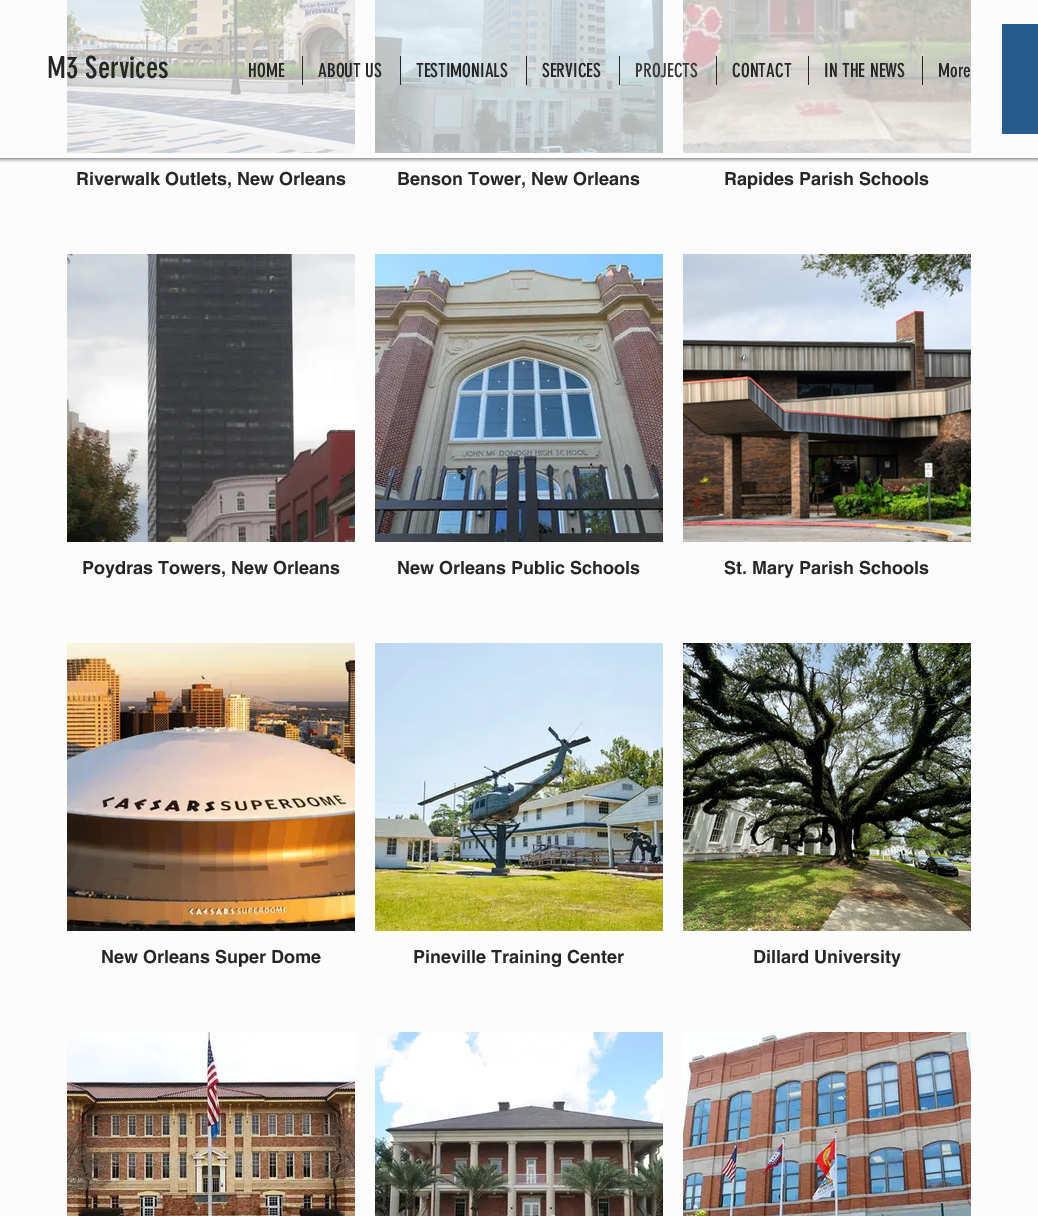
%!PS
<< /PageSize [1038 1216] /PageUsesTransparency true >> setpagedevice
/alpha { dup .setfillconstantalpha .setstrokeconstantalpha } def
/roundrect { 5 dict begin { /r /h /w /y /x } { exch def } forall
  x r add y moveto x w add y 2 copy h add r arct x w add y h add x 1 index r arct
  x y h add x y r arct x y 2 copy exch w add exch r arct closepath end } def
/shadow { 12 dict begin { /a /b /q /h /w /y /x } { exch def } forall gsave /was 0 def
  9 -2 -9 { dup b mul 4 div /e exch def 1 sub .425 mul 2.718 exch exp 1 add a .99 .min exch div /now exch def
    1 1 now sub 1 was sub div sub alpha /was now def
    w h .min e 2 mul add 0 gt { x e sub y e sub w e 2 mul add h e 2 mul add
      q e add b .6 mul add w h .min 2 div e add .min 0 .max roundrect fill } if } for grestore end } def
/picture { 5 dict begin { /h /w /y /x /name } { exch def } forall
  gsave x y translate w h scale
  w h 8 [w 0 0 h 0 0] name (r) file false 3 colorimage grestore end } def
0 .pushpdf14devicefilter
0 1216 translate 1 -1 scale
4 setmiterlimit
0.988 setgray
0 0 1038 1216 rectfill
(img1.rgb) 67 0 288 153 picture
(img2.rgb) 375 0 288 153 picture
(img3.rgb) 683 0 288 153 picture
gsave
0 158 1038 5 rectclip
0 setgray
0 1 1038 158 0 2 0.6 shadow
grestore
/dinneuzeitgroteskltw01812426-Regular [30 0 0 -30 0 0] selectfont
0.149 setgray
47 78 moveto (M3 Services) show
/dinneuzeitgroteskltw01812426-Regular [19 0 0 -19 0 0] selectfont
248 77 moveto (HOME) show
302 56 1 29 rectfill
318 77 moveto (ABOUT US) show
400 56 1 29 rectfill
416 77 moveto (TESTIMONIALS) show
526 56 1 29 rectfill
542 77 moveto (SERVICES) show
619 56 1 29 rectfill
0.231 setgray
635 77 moveto (PROJECTS) show
0.149 setgray
716 56 1 29 rectfill
732 77 moveto (CONTACT) show
808 56 1 29 rectfill
824 77 moveto (IN THE NEWS) show
922 56 1 29 rectfill
938 77 moveto (More) show
0.149 0.361 0.545 setrgbcolor
1002 24 36 110 rectfill
/helvetica-Bold [18 0 0 -18 0 0] selectfont
0.149 setgray
76 185 moveto (Riverwalk Outlets, New Orleans) show
397 185 moveto (Benson Tower, New Orleans) show
724 185 moveto (Rapides Parish Schools) show
(img4.rgb) 67 254 288 288 picture
82 574 moveto (Poydras Towers, New Orleans) show
(img5.rgb) 375 254 288 288 picture
397 574 moveto (New Orleans Public Schools) show
(img6.rgb) 683 254 288 288 picture
724 574 moveto (St. Mary Parish Schools) show
(img7.rgb) 67 643 288 288 picture
101 963 moveto (New Orleans Super Dome) show
(img8.rgb) 375 643 288 288 picture
413 963 moveto (Pineville Training Center) show
(img9.rgb) 683 643 288 288 picture
753 963 moveto (Dillard University) show
(img10.rgb) 67 1032 288 184 picture
(img11.rgb) 375 1032 288 184 picture
(img12.rgb) 683 1032 288 184 picture
.poppdf14devicefilter showpage
